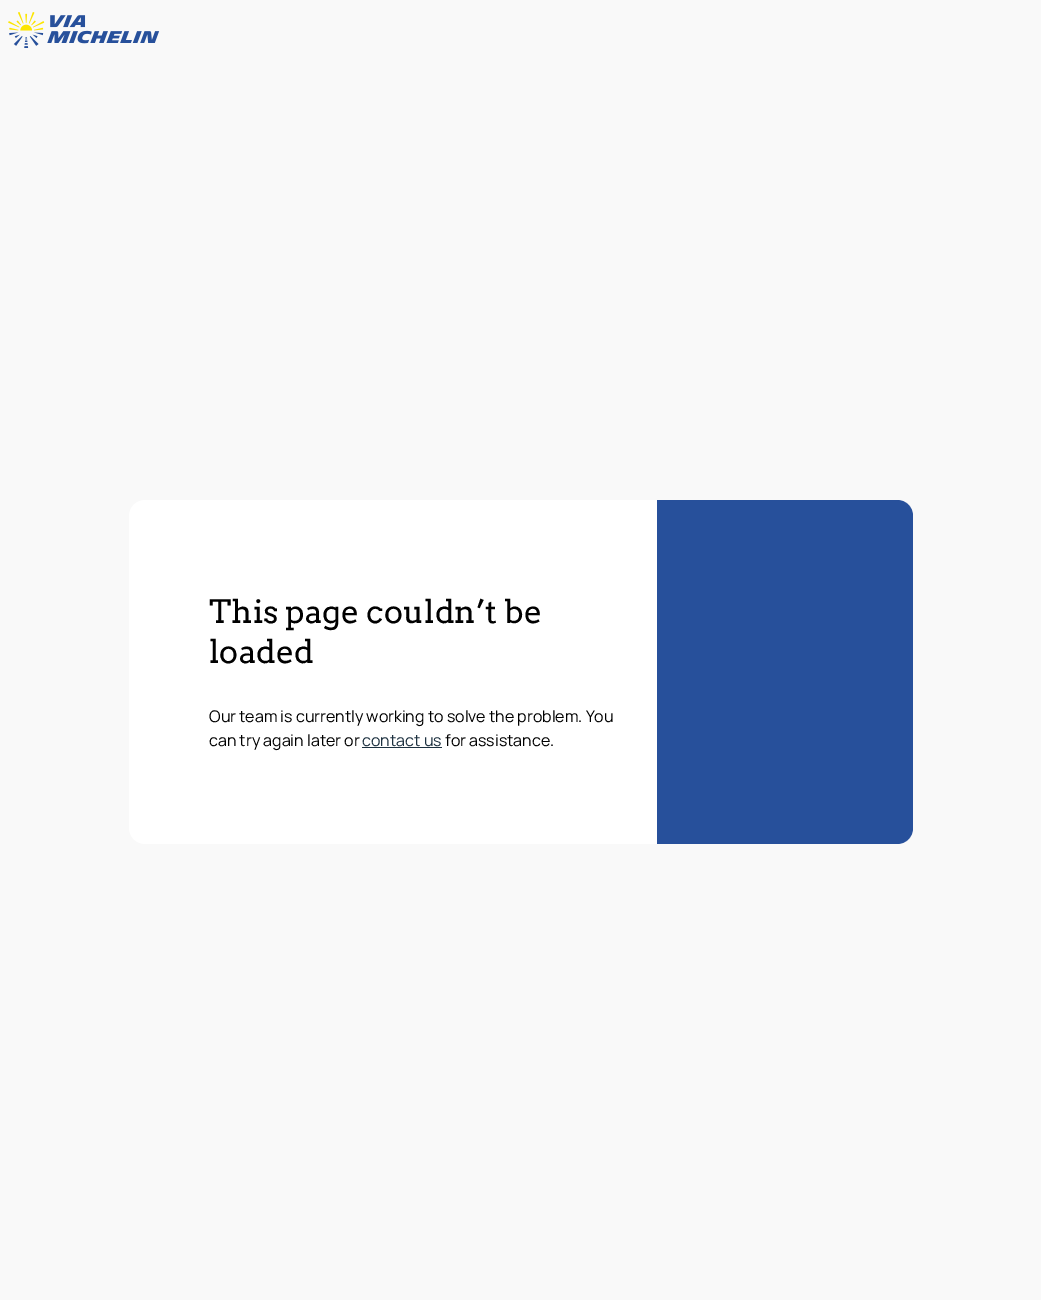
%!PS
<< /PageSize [1041 1300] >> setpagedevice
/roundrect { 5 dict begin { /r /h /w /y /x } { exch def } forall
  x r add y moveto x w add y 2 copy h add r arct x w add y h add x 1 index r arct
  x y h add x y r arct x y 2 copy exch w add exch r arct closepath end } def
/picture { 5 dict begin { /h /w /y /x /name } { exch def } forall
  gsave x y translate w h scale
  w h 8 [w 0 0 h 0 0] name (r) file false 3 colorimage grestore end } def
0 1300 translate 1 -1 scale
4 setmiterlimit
0.976 setgray
0 0 1041 1300 rectfill
(img1.rgb) 8 12 152 36 picture
1 setgray
129 500 784 344 16 roundrect fill
/Arvo-Regular [32 0 0 -32 0 0] selectfont
0 setgray
209 623 moveto (This page couldn’t be) show
209 663 moveto (loaded) show
/Manrope-ExtraLight [16 0 0 -16 0 0] selectfont
209 722 moveto (Our team is currently working to solve the problem. You) show
209 746 moveto (can try again later or) show
0.114 0.192 0.251 setrgbcolor
362 746 moveto (contact us) show
362 747 80 1 rectfill
0 setgray
445 746 moveto (for assistance.) show
0.153 0.314 0.608 setrgbcolor
newpath 657 500 moveto 897 500 lineto 906 500 913 507 913 516 curveto 913 828 lineto 913 837 906 844 897 844 curveto 657 844 lineto closepath fill
showpage
